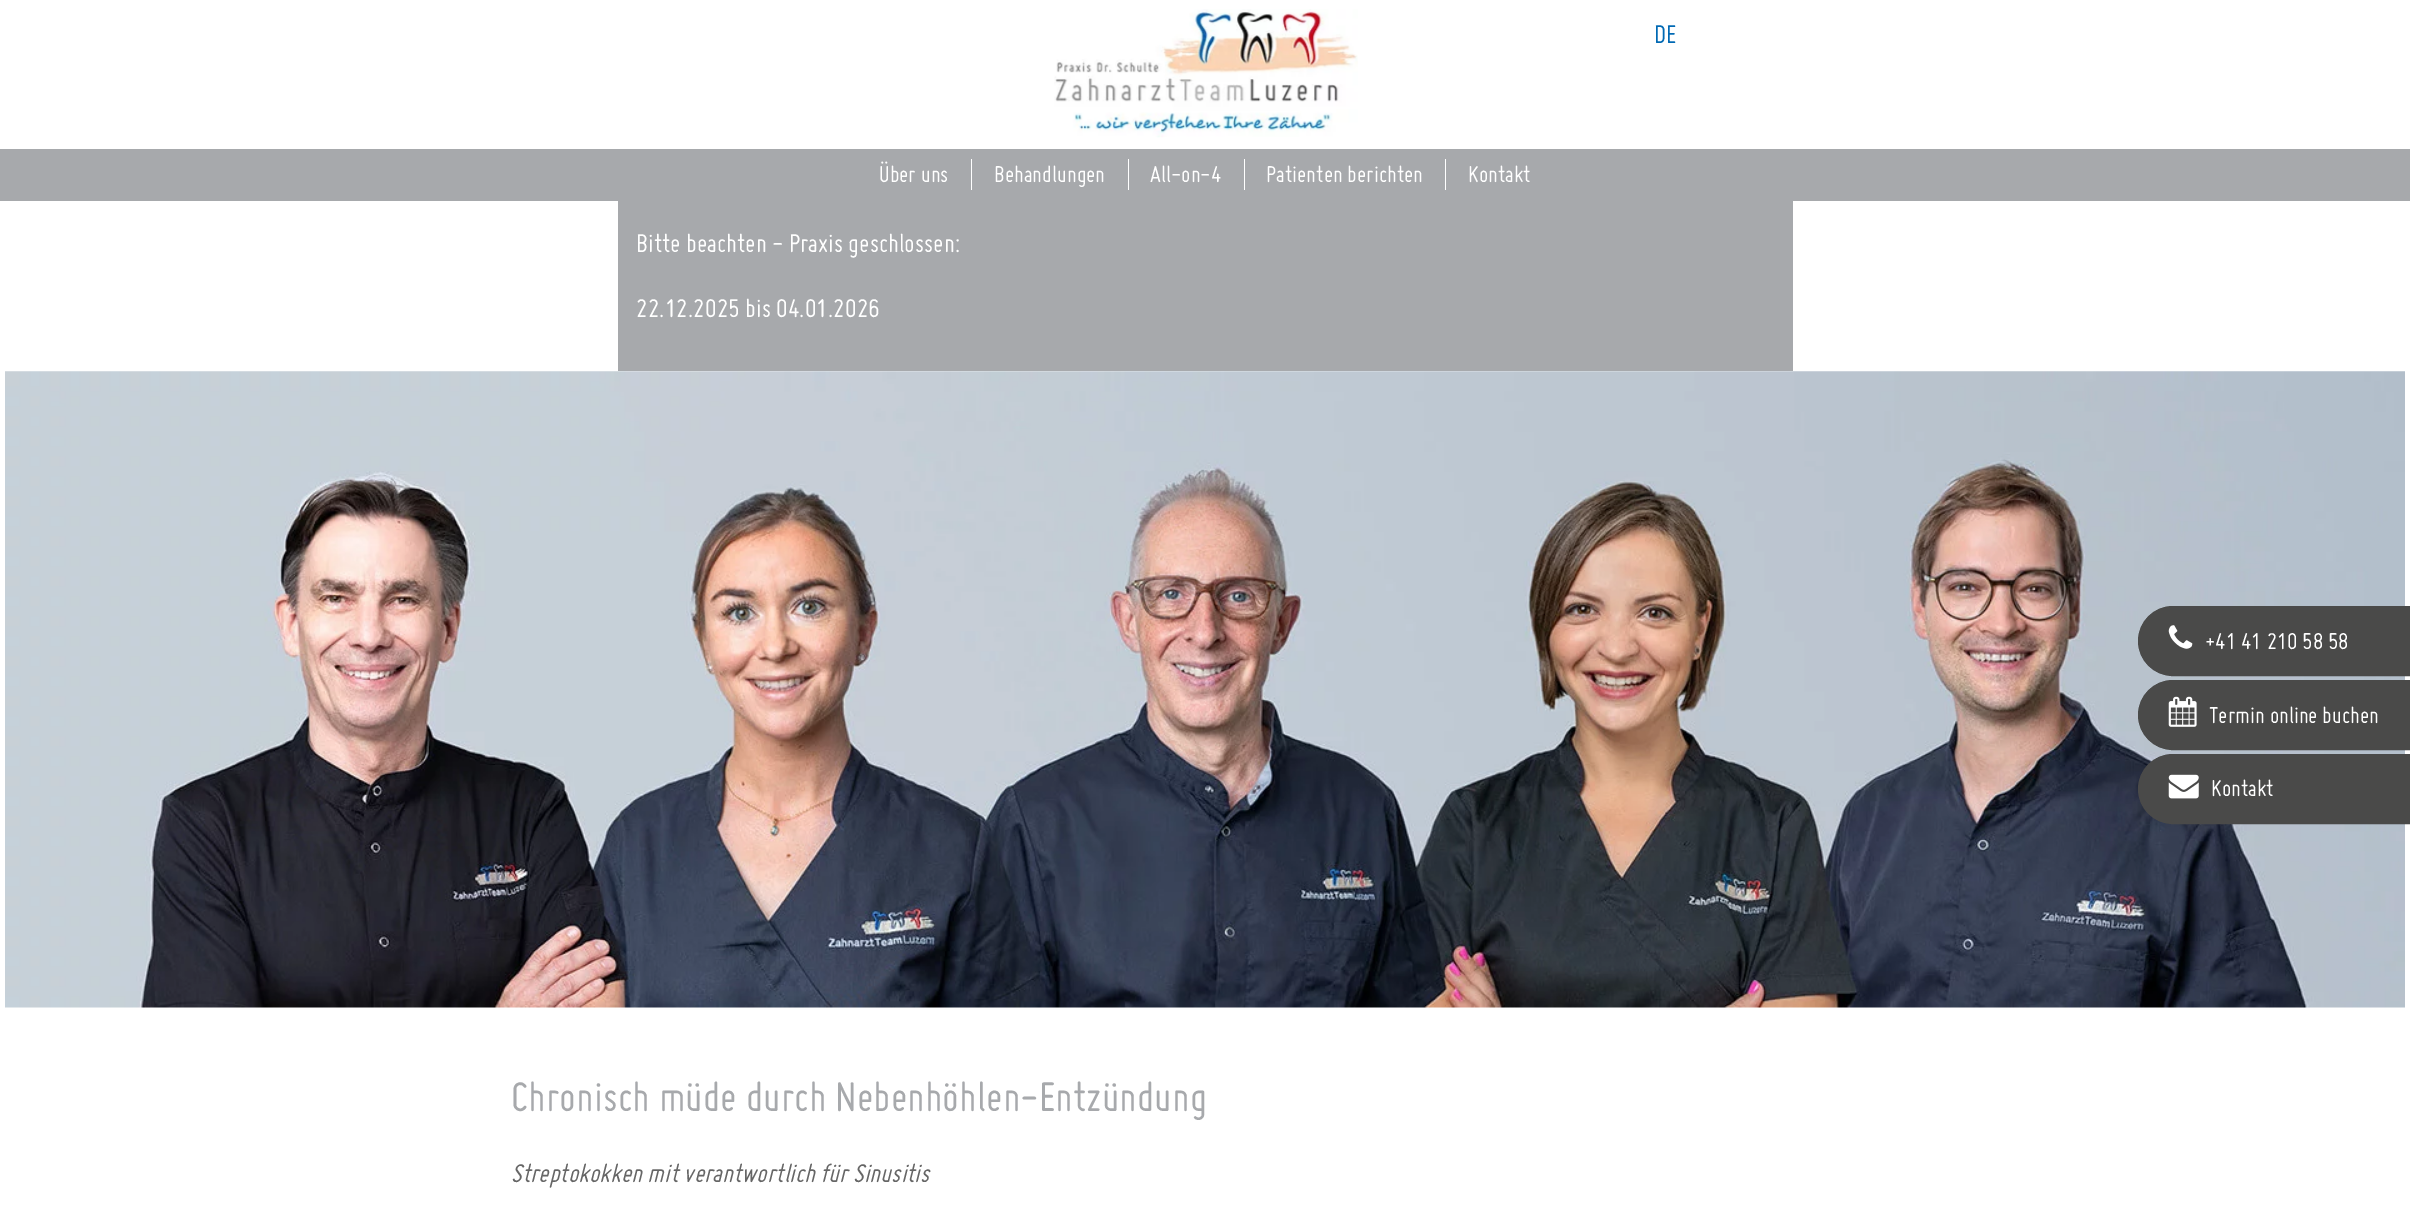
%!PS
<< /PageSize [2410 1207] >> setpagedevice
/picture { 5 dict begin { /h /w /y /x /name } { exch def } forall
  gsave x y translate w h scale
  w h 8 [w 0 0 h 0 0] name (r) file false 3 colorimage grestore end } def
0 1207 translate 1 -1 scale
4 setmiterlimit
1 setgray
0 0 2410 1207 rectfill
(img1.rgb) 1054 9 304 129 picture
/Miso-Regular [28 0 0 -28 0 0] selectfont
0 0.412 0.706 setrgbcolor
1654 43 moveto (DE) show
0.655 0.663 0.675 setrgbcolor
0 149 2410 52 rectfill
/Miso-Regular [25 0 0 -25 0 0] selectfont
1 setgray
879 182 moveto (Über uns) show
971 159 1 31 rectfill
994 182 moveto (Behandlungen) show
1128 159 1 31 rectfill
1150 182 moveto (All-on-4) show
1244 159 1 31 rectfill
1266 182 moveto (Patienten berichten) show
1445 159 1 31 rectfill
1468 182 moveto (Kontakt) show
0.655 0.663 0.675 setrgbcolor
618 201 1175 170 rectfill
/Miso-Regular [28 0 0 -28 0 0] selectfont
1 setgray
636 252 moveto (Bitte beachten - Praxis geschlossen:) show
636 317 moveto (22.12.2025 bis 04.01.2026) show
(img2.rgb) 5 371 2400 637 picture
/Miso-Regular [45 0 0 -45 0 0] selectfont
0.655 0.663 0.675 setrgbcolor
511 1111 moveto (Chronisch müde durch Nebenhöhlen-Entzündung) show
/Miso-Italic [28 0 0 -28 0 0] selectfont
0.4 setgray
511 1182 moveto (Streptokokken mit verantwortlich für Sinusitis) show
0.29 0.29 0.286 setrgbcolor
newpath 2173 606.5 moveto 2409.5 606.5 lineto 2409.5 675.5 lineto 2173 675.5 lineto 2154 675.5 2138.5 660 2138.5 641 curveto 2138.5 622 2154 606.5 2173 606.5 curveto closepath gsave fill grestore
stroke
(img3.rgb) 2168 625 25 24 picture
/Miso-Regular [25 0 0 -25 0 0] selectfont
1 setgray
2205 649 moveto (+41 41 210 58 58) show
0.29 0.29 0.286 setrgbcolor
newpath 2173 680.5 moveto 2409.5 680.5 lineto 2409.5 749.5 lineto 2173 749.5 lineto 2154 749.5 2138.5 734 2138.5 715 curveto 2138.5 696 2154 680.5 2173 680.5 curveto closepath gsave fill grestore
stroke
(img4.rgb) 2168 696 29 31 picture
1 setgray
2209 723 moveto (Termin online buchen) show
0.29 0.29 0.286 setrgbcolor
newpath 2173 754.5 moveto 2409.5 754.5 lineto 2409.5 823.5 lineto 2173 823.5 lineto 2154 823.5 2138.5 808 2138.5 789 curveto 2138.5 770 2154 754.5 2173 754.5 curveto closepath gsave fill grestore
stroke
(img5.rgb) 2168 774 31 25 picture
1 setgray
2211 796 moveto (Kontakt) show
showpage
